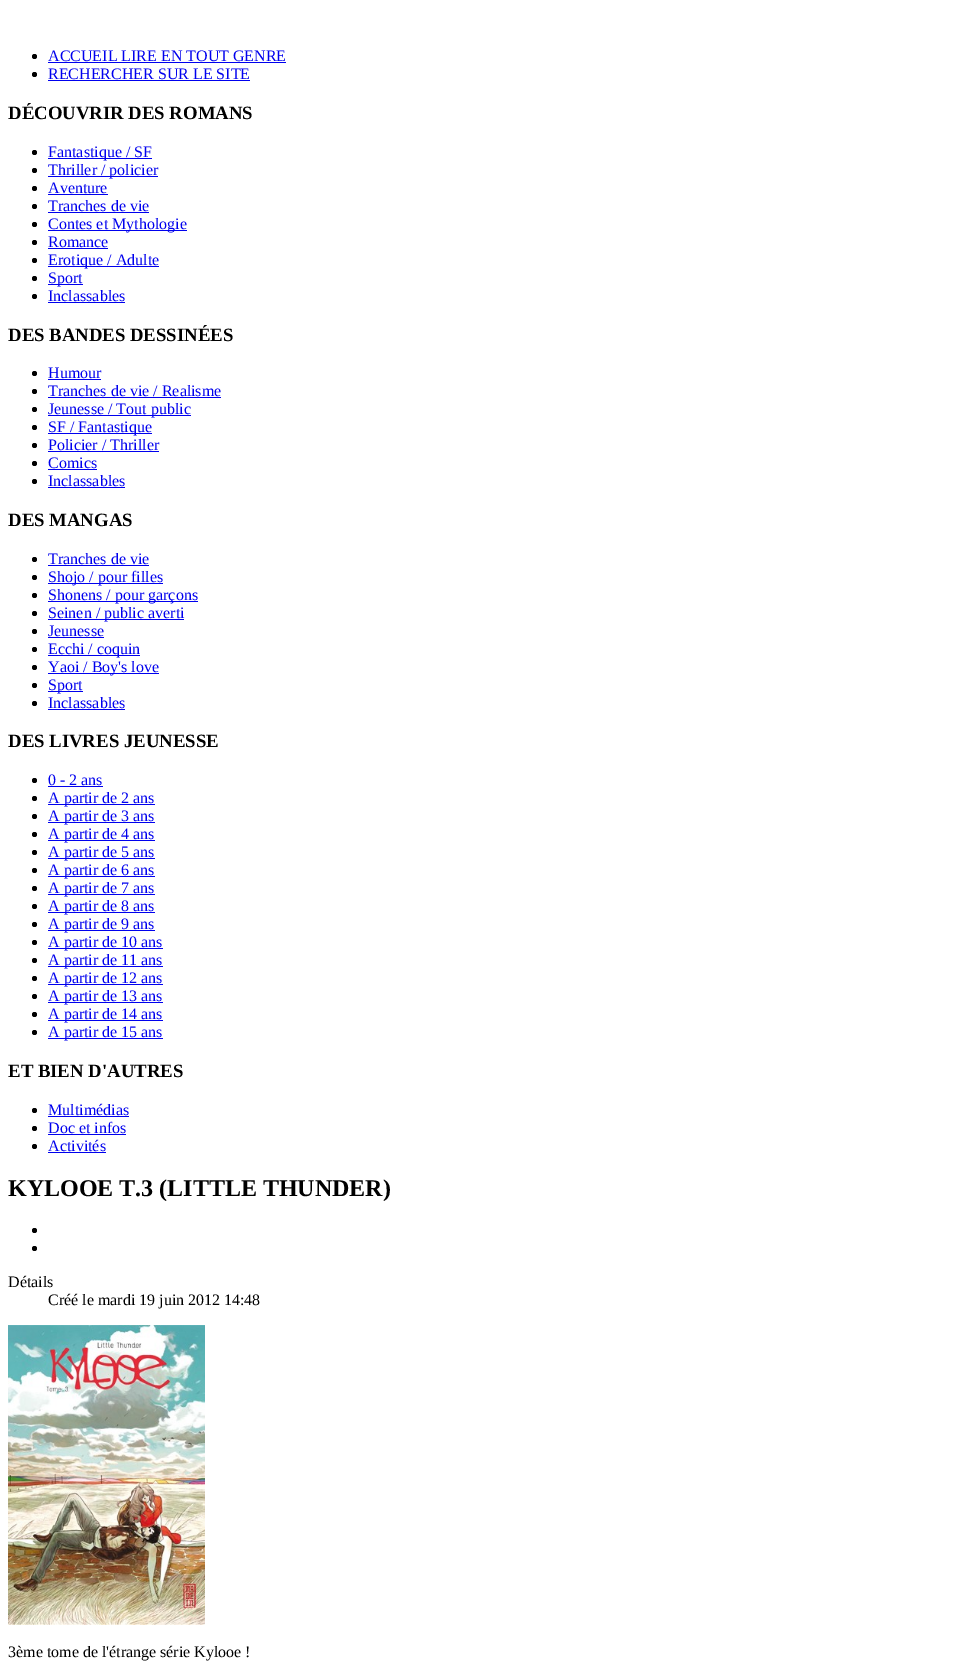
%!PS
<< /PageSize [964 1671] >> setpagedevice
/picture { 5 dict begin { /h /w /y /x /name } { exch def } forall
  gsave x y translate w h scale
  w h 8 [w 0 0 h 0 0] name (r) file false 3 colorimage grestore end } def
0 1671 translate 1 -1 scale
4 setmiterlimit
1 setgray
0 0 964 1671 rectfill
0 setgray
newpath 34.5 56.5 2.5 0 360 arc closepath fill
/LiberationSerif-Regular [16 0 0 -16 0 0] selectfont
0 0 0.933 setrgbcolor
48 61 moveto (ACCUEIL LIRE EN TOUT GENRE) show
48 62 238 1 rectfill
0 setgray
newpath 34.5 74.5 2.5 0 360 arc closepath fill
0 0 0.933 setrgbcolor
48 79 moveto (RECHERCHER SUR LE SITE) show
48 80 202 1 rectfill
/LiberationSerif-Bold [18.75 0 0 -18.75 0 0] selectfont
0 setgray
8 119 moveto (DÉCOUVRIR DES ROMANS) show
newpath 34.5 152.5 2.5 0 360 arc closepath fill
0 0 0.933 setrgbcolor
48 158 104 1 rectfill
/LiberationSerif-Regular [16 0 0 -16 0 0] selectfont
48 157 moveto (Fantastique / SF) show
0 setgray
newpath 34.5 170.5 2.5 0 360 arc closepath fill
0 0 0.933 setrgbcolor
48 176 110 1 rectfill
48 175 moveto (Thriller / policier) show
0 setgray
newpath 34.5 188.5 2.5 0 360 arc closepath fill
0 0 0.933 setrgbcolor
48 193 moveto (Aventure) show
48 194 60 1 rectfill
0 setgray
newpath 34.5 206.5 2.5 0 360 arc closepath fill
0 0 0.933 setrgbcolor
48 211 moveto (Tranches de vie) show
48 212 101 1 rectfill
0 setgray
newpath 34.5 224.5 2.5 0 360 arc closepath fill
0 0 0.933 setrgbcolor
48 230 139 1 rectfill
48 229 moveto (Contes et Mythologie) show
0 setgray
newpath 34.5 242.5 2.5 0 360 arc closepath fill
0 0 0.933 setrgbcolor
48 247 moveto (Romance) show
48 248 60 1 rectfill
0 setgray
newpath 34.5 260.5 2.5 0 360 arc closepath fill
0 0 0.933 setrgbcolor
48 266 111 1 rectfill
48 265 moveto (Erotique / Adulte) show
0 setgray
newpath 34.5 278.5 2.5 0 360 arc closepath fill
0 0 0.933 setrgbcolor
48 284 35 1 rectfill
48 283 moveto (Sport) show
0 setgray
newpath 34.5 296.5 2.5 0 360 arc closepath fill
0 0 0.933 setrgbcolor
48 301 moveto (Inclassables) show
48 302 77 1 rectfill
/LiberationSerif-Bold [18.75 0 0 -18.75 0 0] selectfont
0 setgray
8 341 moveto (DES BANDES DESSINÉES) show
newpath 34.5 373.5 2.5 0 360 arc closepath fill
/LiberationSerif-Regular [16 0 0 -16 0 0] selectfont
0 0 0.933 setrgbcolor
48 378 moveto (Humour) show
48 379 53 1 rectfill
0 setgray
newpath 34.5 391.5 2.5 0 360 arc closepath fill
0 0 0.933 setrgbcolor
48 396 moveto (Tranches de vie / Realisme) show
48 397 173 1 rectfill
0 setgray
newpath 34.5 409.5 2.5 0 360 arc closepath fill
0 0 0.933 setrgbcolor
48 415 143 1 rectfill
48 414 moveto (Jeunesse / Tout public) show
0 setgray
newpath 34.5 427.5 2.5 0 360 arc closepath fill
0 0 0.933 setrgbcolor
48 433 104 1 rectfill
48 432 moveto (SF / Fantastique) show
0 setgray
newpath 34.5 445.5 2.5 0 360 arc closepath fill
0 0 0.933 setrgbcolor
48 450 moveto (Policier / Thriller) show
48 451 111 1 rectfill
0 setgray
newpath 34.5 463.5 2.5 0 360 arc closepath fill
0 0 0.933 setrgbcolor
48 468 moveto (Comics) show
48 469 49 1 rectfill
0 setgray
newpath 34.5 481.5 2.5 0 360 arc closepath fill
0 0 0.933 setrgbcolor
48 486 moveto (Inclassables) show
48 487 77 1 rectfill
/LiberationSerif-Bold [18.75 0 0 -18.75 0 0] selectfont
0 setgray
8 526 moveto (DES MANGAS) show
newpath 34.5 559.5 2.5 0 360 arc closepath fill
/LiberationSerif-Regular [16 0 0 -16 0 0] selectfont
0 0 0.933 setrgbcolor
48 564 moveto (Tranches de vie) show
48 565 101 1 rectfill
0 setgray
newpath 34.5 577.5 2.5 0 360 arc closepath fill
0 0 0.933 setrgbcolor
48 583 115 1 rectfill
48 582 moveto (Shojo / pour filles) show
0 setgray
newpath 34.5 595.5 2.5 0 360 arc closepath fill
0 0 0.933 setrgbcolor
48 601 150 1 rectfill
48 600 moveto (Shonens / pour garçons) show
0 setgray
newpath 34.5 613.5 2.5 0 360 arc closepath fill
0 0 0.933 setrgbcolor
48 619 136 1 rectfill
48 618 moveto (Seinen / public averti) show
0 setgray
newpath 34.5 631.5 2.5 0 360 arc closepath fill
0 0 0.933 setrgbcolor
48 636 moveto (Jeunesse) show
48 637 56 1 rectfill
0 setgray
newpath 34.5 649.5 2.5 0 360 arc closepath fill
0 0 0.933 setrgbcolor
48 655 92 1 rectfill
48 654 moveto (Ecchi / coquin) show
0 setgray
newpath 34.5 667.5 2.5 0 360 arc closepath fill
0 0 0.933 setrgbcolor
48 673 111 1 rectfill
48 672 moveto (Yaoi / Boy's love) show
0 setgray
newpath 34.5 685.5 2.5 0 360 arc closepath fill
0 0 0.933 setrgbcolor
48 691 35 1 rectfill
48 690 moveto (Sport) show
0 setgray
newpath 34.5 703.5 2.5 0 360 arc closepath fill
0 0 0.933 setrgbcolor
48 708 moveto (Inclassables) show
48 709 77 1 rectfill
/LiberationSerif-Bold [18.75 0 0 -18.75 0 0] selectfont
0 setgray
8 747 moveto (DES LIVRES JEUNESSE) show
newpath 34.5 780.5 2.5 0 360 arc closepath fill
/LiberationSerif-Regular [16 0 0 -16 0 0] selectfont
0 0 0.933 setrgbcolor
48 785 moveto (0 - 2 ans) show
48 786 55 1 rectfill
0 setgray
newpath 34.5 798.5 2.5 0 360 arc closepath fill
0 0 0.933 setrgbcolor
48 804 107 1 rectfill
48 803 moveto (A partir de 2 ans) show
0 setgray
newpath 34.5 816.5 2.5 0 360 arc closepath fill
0 0 0.933 setrgbcolor
48 822 107 1 rectfill
48 821 moveto (A partir de 3 ans) show
0 setgray
newpath 34.5 834.5 2.5 0 360 arc closepath fill
0 0 0.933 setrgbcolor
48 840 107 1 rectfill
48 839 moveto (A partir de 4 ans) show
0 setgray
newpath 34.5 852.5 2.5 0 360 arc closepath fill
0 0 0.933 setrgbcolor
48 858 107 1 rectfill
48 857 moveto (A partir de 5 ans) show
0 setgray
newpath 34.5 870.5 2.5 0 360 arc closepath fill
0 0 0.933 setrgbcolor
48 876 107 1 rectfill
48 875 moveto (A partir de 6 ans) show
0 setgray
newpath 34.5 888.5 2.5 0 360 arc closepath fill
0 0 0.933 setrgbcolor
48 894 107 1 rectfill
48 893 moveto (A partir de 7 ans) show
0 setgray
newpath 34.5 906.5 2.5 0 360 arc closepath fill
0 0 0.933 setrgbcolor
48 912 107 1 rectfill
48 911 moveto (A partir de 8 ans) show
0 setgray
newpath 34.5 924.5 2.5 0 360 arc closepath fill
0 0 0.933 setrgbcolor
48 930 107 1 rectfill
48 929 moveto (A partir de 9 ans) show
0 setgray
newpath 34.5 942.5 2.5 0 360 arc closepath fill
0 0 0.933 setrgbcolor
48 948 115 1 rectfill
48 947 moveto (A partir de 10 ans) show
0 setgray
newpath 34.5 960.5 2.5 0 360 arc closepath fill
0 0 0.933 setrgbcolor
48 966 115 1 rectfill
48 965 moveto (A partir de 11 ans) show
0 setgray
newpath 34.5 978.5 2.5 0 360 arc closepath fill
0 0 0.933 setrgbcolor
48 984 115 1 rectfill
48 983 moveto (A partir de 12 ans) show
0 setgray
newpath 34.5 996.5 2.5 0 360 arc closepath fill
0 0 0.933 setrgbcolor
48 1002 115 1 rectfill
48 1001 moveto (A partir de 13 ans) show
0 setgray
newpath 34.5 1014.5 2.5 0 360 arc closepath fill
0 0 0.933 setrgbcolor
48 1020 115 1 rectfill
48 1019 moveto (A partir de 14 ans) show
0 setgray
newpath 34.5 1032.5 2.5 0 360 arc closepath fill
0 0 0.933 setrgbcolor
48 1038 115 1 rectfill
48 1037 moveto (A partir de 15 ans) show
/LiberationSerif-Bold [18.75 0 0 -18.75 0 0] selectfont
0 setgray
8 1077 moveto (ET BIEN D'AUTRES) show
newpath 34.5 1110.5 2.5 0 360 arc closepath fill
/LiberationSerif-Regular [16 0 0 -16 0 0] selectfont
0 0 0.933 setrgbcolor
48 1115 moveto (Multimédias) show
48 1116 81 1 rectfill
0 setgray
newpath 34.5 1128.5 2.5 0 360 arc closepath fill
0 0 0.933 setrgbcolor
48 1133 moveto (Doc et infos) show
48 1134 78 1 rectfill
0 setgray
newpath 34.5 1146.5 2.5 0 360 arc closepath fill
0 0 0.933 setrgbcolor
48 1151 moveto (Activités) show
48 1152 58 1 rectfill
/LiberationSerif-Bold [24 0 0 -24 0 0] selectfont
0 setgray
8 1196 moveto (KYLOOE T.3 \(LITTLE THUNDER\)) show
newpath 34.5 1230.5 2.5 0 360 arc closepath fill
newpath 34.5 1248.5 2.5 0 360 arc closepath fill
/LiberationSerif-Regular [16 0 0 -16 0 0] selectfont
8 1287 moveto (Détails) show
48 1305 moveto (Créé le mardi 19 juin 2012 14:48) show
(img1.rgb) 8 1325 197 300 picture
8 1657 moveto (3ème tome de l'étrange série Kylooe !) show
showpage
